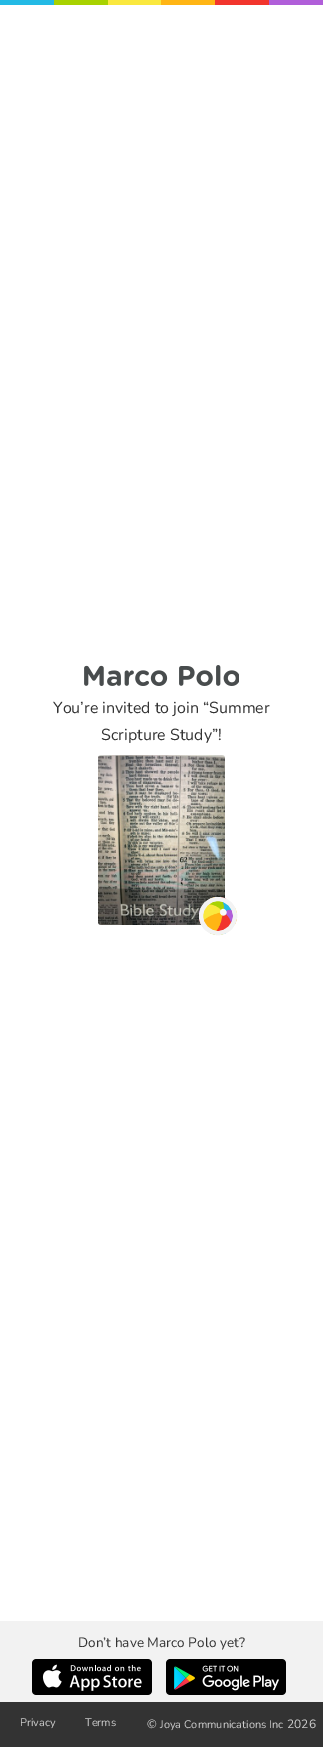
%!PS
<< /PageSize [323 1747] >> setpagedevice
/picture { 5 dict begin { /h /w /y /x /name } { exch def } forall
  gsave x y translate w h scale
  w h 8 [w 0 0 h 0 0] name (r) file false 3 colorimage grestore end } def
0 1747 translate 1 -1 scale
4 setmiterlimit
1 setgray
0 0 323 1747 rectfill
0.137 0.729 0.898 setrgbcolor
0 0 54 5 rectfill
0.659 0.824 0 setrgbcolor
54 0 54 5 rectfill
0.98 0.91 0.243 setrgbcolor
108 0 53 5 rectfill
1 0.71 0.078 setrgbcolor
161 0 54 5 rectfill
0.949 0.208 0.176 setrgbcolor
215 0 54 5 rectfill
0.69 0.369 0.851 setrgbcolor
269 0 54 5 rectfill
(img1.rgb) 84 665 155 21 picture
/Nunito-ExtraLight [16 0 0 -16 0 0] selectfont
0.2 setgray
53 713 moveto (You’re invited to join “Summer) show
101 740 moveto (Scripture Study”!) show
(img2.rgb) 98 755 127 170 picture
0.953 setgray
newpath 218 916 19 0 360 arc closepath fill
(img3.rgb) 199 897 38 38 picture
4 setlinewidth
newpath 218 916 17 0 360 arc closepath stroke
0.949 setgray
0 1621 323 81 rectfill
/Nunito-ExtraLight [13.6 0 0 -13.6 0 0] selectfont
0.2 setgray
78 1647 moveto (Don’t have Marco Polo yet?) show
(img4.rgb) 32 1659 120 36 picture
(img5.rgb) 166 1659 120 36 picture
0 1702 323 45 rectfill
/Nunito-ExtraLight [11 0 0 -11 0 0] selectfont
0.808 setgray
20 1726 moveto (Privacy) show
85 1726 moveto (Terms) show
/Nunito-ExtraLight [12 0 0 -12 0 0] selectfont
147 1728 moveto (©) show
/Nunito-ExtraLight [11 0 0 -11 0 0] selectfont
160 1728 moveto (Joya Communications Inc) show
/Nunito-ExtraLight [12 0 0 -12 0 0] selectfont
287 1728 moveto (2026) show
showpage
